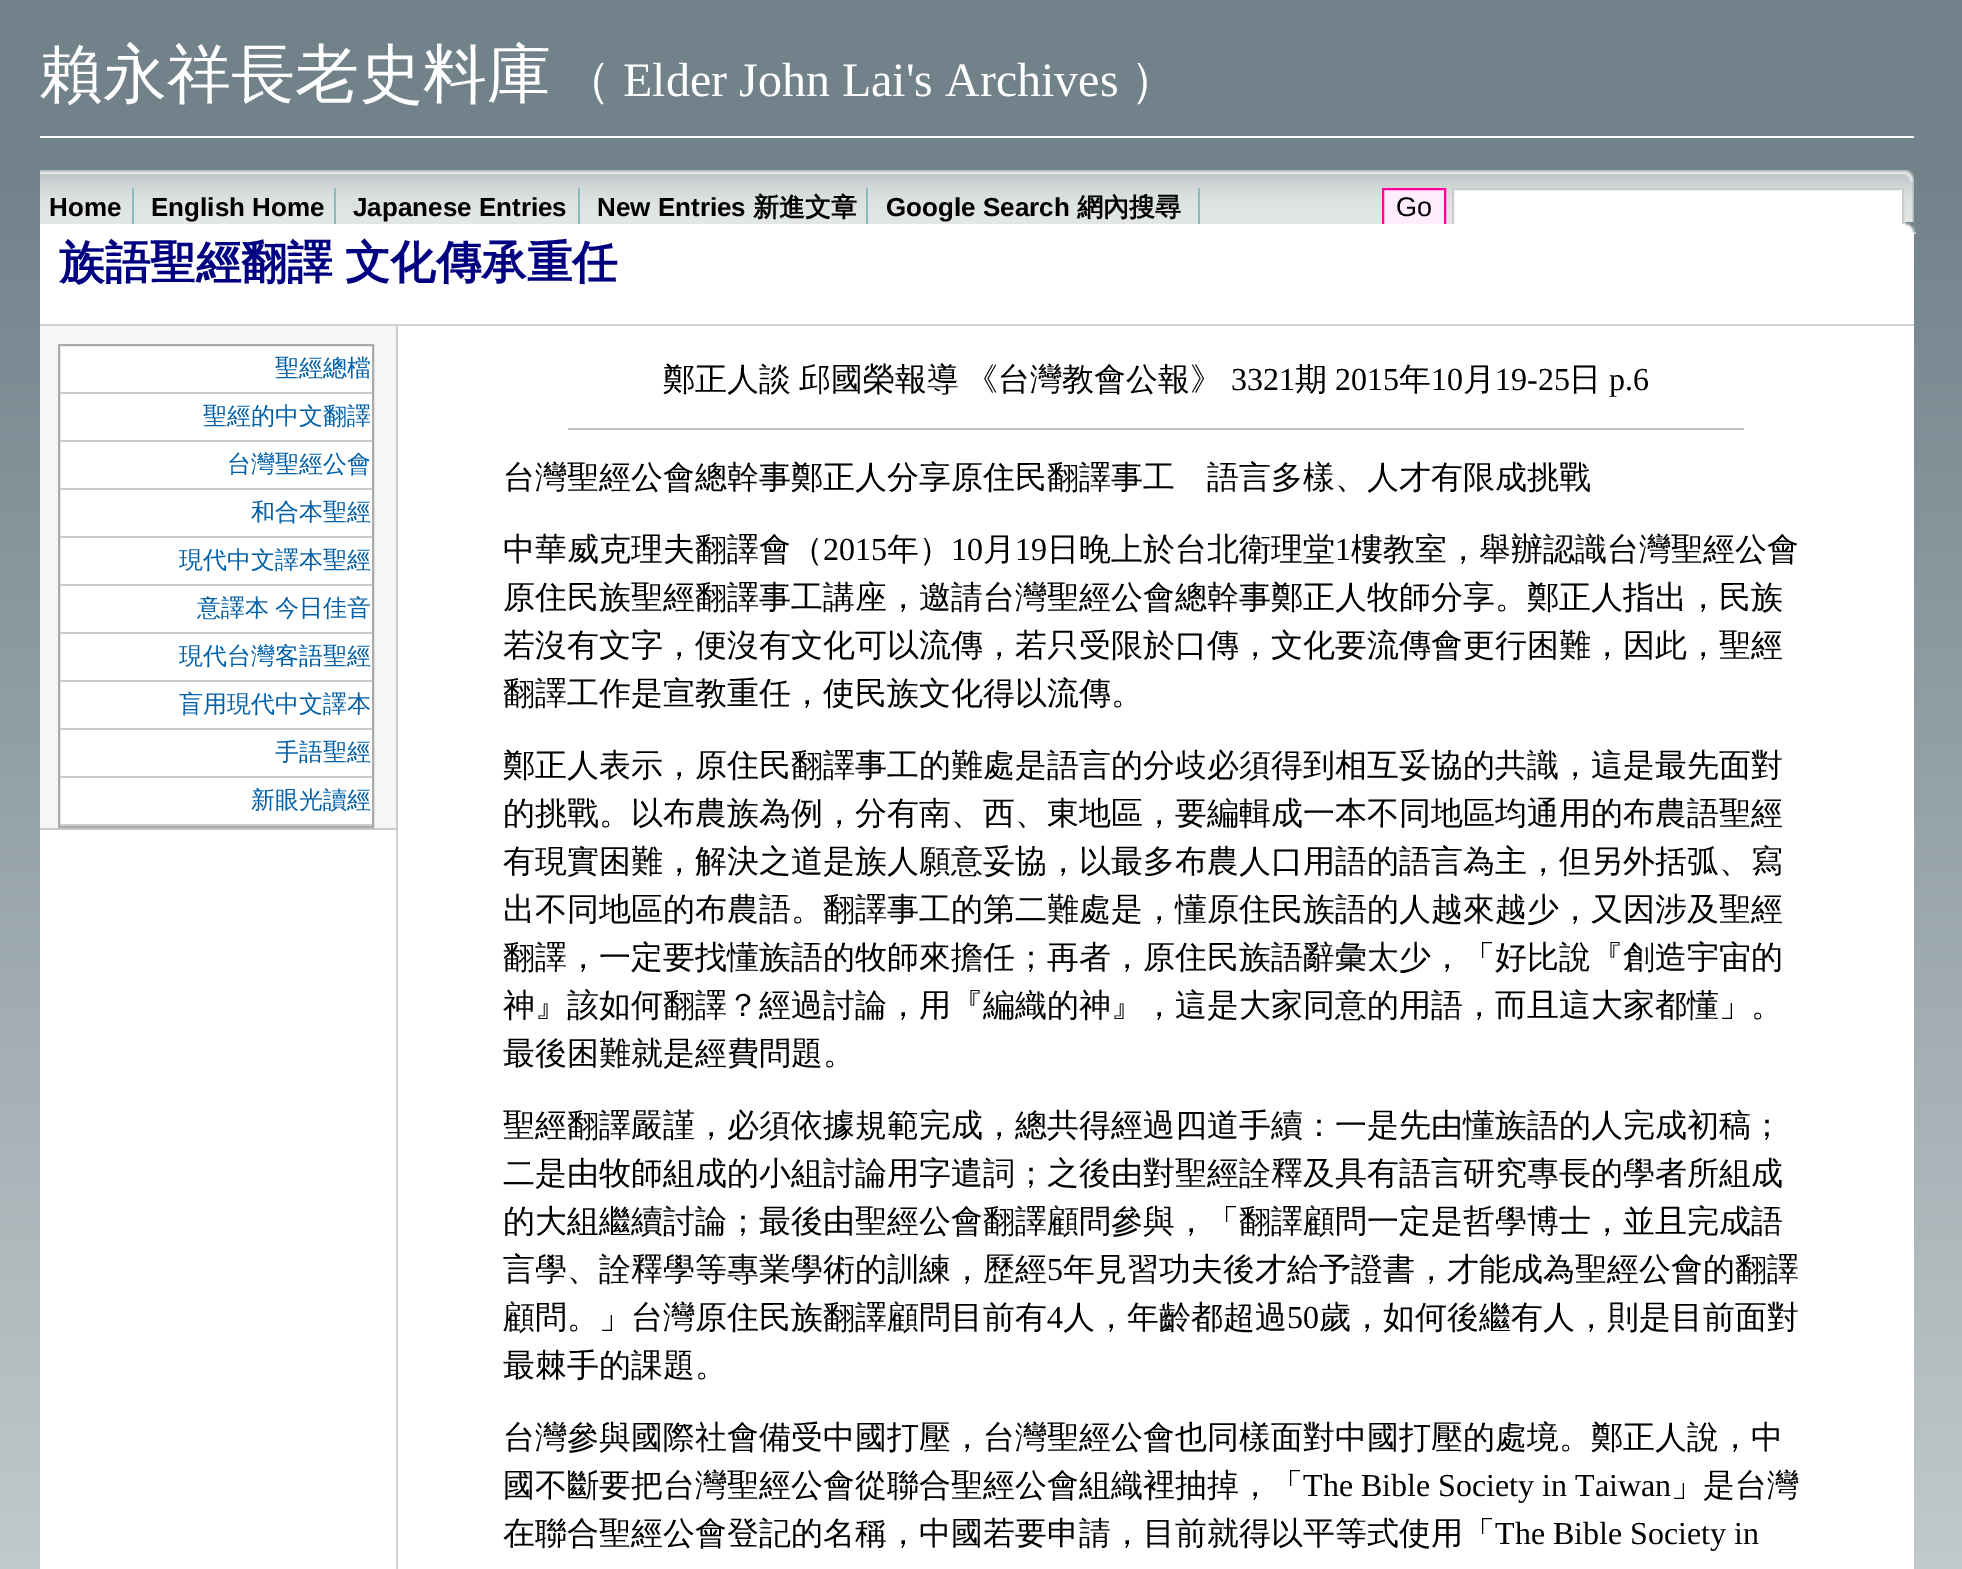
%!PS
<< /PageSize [1962 1569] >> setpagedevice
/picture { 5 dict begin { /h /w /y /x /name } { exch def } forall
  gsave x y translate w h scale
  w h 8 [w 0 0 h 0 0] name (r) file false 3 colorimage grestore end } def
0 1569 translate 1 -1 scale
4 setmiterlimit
1 setgray
0 0 1962 1569 rectfill
(img1.rgb) 0 0 1962 1569 picture
40 136 1874 2 rectfill
/WenQuanYiZenHei-Medium [64 0 0 -64 0 0] selectfont
39 96 moveto (賴永祥長老史料庫) show
/WenQuanYiZenHei-Medium [48 0 0 -48 0 0] selectfont
563 96 moveto (（) show
/LiberationSerif-Regular [48 0 0 -48 0 0] selectfont
623 96 moveto (Elder John Lai's Archives) show
/WenQuanYiZenHei-Medium [48 0 0 -48 0 0] selectfont
1130 96 moveto (）) show
(img2.rgb) 40 170 1866 54 picture
/LiberationSans-Bold [26 0 0 -26 0 0] selectfont
0 setgray
49 216 moveto (Home) show
0.561 0.722 0.737 setrgbcolor
132 188 2 42 rectfill
0 setgray
151 216 moveto (English Home) show
0.561 0.722 0.737 setrgbcolor
334 188 2 42 rectfill
0 setgray
353 216 moveto (Japanese Entries) show
0.561 0.722 0.737 setrgbcolor
578 188 2 42 rectfill
0 setgray
597 216 moveto (New Entries) show
/WenQuanYiZenHei-Bold [26 0 0 -26 0 0] selectfont
753 216 moveto (新進文章) show
0.561 0.722 0.737 setrgbcolor
866 188 2 42 rectfill
/LiberationSans-Bold [26 0 0 -26 0 0] selectfont
0 setgray
886 216 moveto (Google Search) show
/WenQuanYiZenHei-Bold [26 0 0 -26 0 0] selectfont
1077 216 moveto (網內搜尋) show
0.561 0.722 0.737 setrgbcolor
1198 188 2 42 rectfill
1 0.925 1 setrgbcolor
newpath 1383 189 moveto 1445 189 lineto 1445 225 lineto 1383 225 lineto closepath gsave fill grestore
1 0 0.6 setrgbcolor
2 setlinewidth
stroke
/LiberationSans-Regular [27 0 0 -27 0 0] selectfont
0 setgray
1396 216 moveto (Go) show
1 setgray
newpath 1453 189 moveto 1903 189 lineto 1903 225 lineto 1453 225 lineto closepath gsave fill grestore
0.8 setgray
stroke
(img3.rgb) 1906 170 8 52 picture
1 setgray
40 224 1874 1345 rectfill
(img4.rgb) 1904 222 12 12 picture
0.8 0.824 0.824 setrgbcolor
40 324 1874 2 rectfill
/WenQuanYiZenHei-Bold [45.5 0 0 -45.5 0 0] selectfont
0 0 0.502 setrgbcolor
59 278 moveto -1 0 32 (族語聖經翻譯 文化傳承重任) widthshow
0.961 0.969 0.969 setrgbcolor
40 326 356 502 rectfill
0.8 setgray
396 326 2 504 rectfill
40 828 358 2 rectfill
1 setgray
60 346 312 478 rectfill
0.667 setgray
59 345 314 482 rectstroke
0.8 setgray
60 392 312 2 rectfill
/WenQuanYiZenHei-Medium [24 0 0 -24 0 0] selectfont
0 0.373 0.663 setrgbcolor
275 376 moveto (聖經總檔) show
0.8 setgray
60 440 312 2 rectfill
0 0.373 0.663 setrgbcolor
203 424 moveto (聖經的中文翻譯) show
0.8 setgray
60 488 312 2 rectfill
0 0.373 0.663 setrgbcolor
227 472 moveto (台灣聖經公會) show
0.8 setgray
60 536 312 2 rectfill
0 0.373 0.663 setrgbcolor
251 520 moveto (和合本聖經) show
0.8 setgray
60 584 312 2 rectfill
0 0.373 0.663 setrgbcolor
179 568 moveto (現代中文譯本聖經) show
0.8 setgray
60 632 312 2 rectfill
0 0.373 0.663 setrgbcolor
197 616 moveto -1 0 32 (意譯本 今日佳音) widthshow
0.8 setgray
60 680 312 2 rectfill
0 0.373 0.663 setrgbcolor
179 664 moveto (現代台灣客語聖經) show
0.8 setgray
60 728 312 2 rectfill
0 0.373 0.663 setrgbcolor
179 712 moveto (盲用現代中文譯本) show
0.8 setgray
60 776 312 2 rectfill
0 0.373 0.663 setrgbcolor
275 760 moveto (手語聖經) show
0.8 setgray
60 824 312 2 rectfill
0 0.373 0.663 setrgbcolor
251 808 moveto (新眼光讀經) show
0.8 0.824 0.824 setrgbcolor
396 830 2 739 rectfill
/WenQuanYiZenHei-Medium [32 0 0 -32 0 0] selectfont
0 setgray
663 390 moveto -2 0 32 (鄭正人談 邱國榮報導 《台灣教會公報》) widthshow
/LiberationSerif-Regular [32 0 0 -32 0 0] selectfont
1231 390 moveto (3321) show
/WenQuanYiZenHei-Medium [32 0 0 -32 0 0] selectfont
1295 390 moveto (期) show
/LiberationSerif-Regular [32 0 0 -32 0 0] selectfont
1335 390 moveto (2015) show
/WenQuanYiZenHei-Medium [32 0 0 -32 0 0] selectfont
1399 390 moveto (年) show
/LiberationSerif-Regular [32 0 0 -32 0 0] selectfont
1431 390 moveto (10) show
/WenQuanYiZenHei-Medium [32 0 0 -32 0 0] selectfont
1463 390 moveto (月) show
/LiberationSerif-Regular [32 0 0 -32 0 0] selectfont
1495 390 moveto (19-25) show
/WenQuanYiZenHei-Medium [32 0 0 -32 0 0] selectfont
1569 390 moveto (日) show
/LiberationSerif-Regular [32 0 0 -32 0 0] selectfont
1609 390 moveto (p.6) show
0.753 setgray
568 428 1176 2 rectfill
/WenQuanYiZenHei-Medium [32 0 0 -32 0 0] selectfont
0 setgray
503 488 moveto (台灣聖經公會總幹事鄭正人分享原住民翻譯事工　語言多樣、人才有限成挑戰) show
503 560 moveto (中華威克理夫翻譯會（) show
/LiberationSerif-Regular [32 0 0 -32 0 0] selectfont
823 560 moveto (2015) show
/WenQuanYiZenHei-Medium [32 0 0 -32 0 0] selectfont
887 560 moveto (年）) show
/LiberationSerif-Regular [32 0 0 -32 0 0] selectfont
951 560 moveto (10) show
/WenQuanYiZenHei-Medium [32 0 0 -32 0 0] selectfont
983 560 moveto (月) show
/LiberationSerif-Regular [32 0 0 -32 0 0] selectfont
1015 560 moveto (19) show
/WenQuanYiZenHei-Medium [32 0 0 -32 0 0] selectfont
1047 560 moveto (日晚上於台北衛理堂) show
/LiberationSerif-Regular [32 0 0 -32 0 0] selectfont
1335 560 moveto (1) show
/WenQuanYiZenHei-Medium [32 0 0 -32 0 0] selectfont
1351 560 moveto (樓教室，舉辦認識台灣聖經公會) show
503 608 moveto (原住民族聖經翻譯事工講座，邀請台灣聖經公會總幹事鄭正人牧師分享。鄭正人指出，民族) show
503 656 moveto (若沒有文字，便沒有文化可以流傳，若只受限於口傳，文化要流傳會更行困難，因此，聖經) show
503 704 moveto (翻譯工作是宣教重任，使民族文化得以流傳。) show
503 776 moveto (鄭正人表示，原住民翻譯事工的難處是語言的分歧必須得到相互妥協的共識，這是最先面對) show
503 824 moveto (的挑戰。以布農族為例，分有南、西、東地區，要編輯成一本不同地區均通用的布農語聖經) show
503 872 moveto (有現實困難，解決之道是族人願意妥協，以最多布農人口用語的語言為主，但另外括弧、寫) show
503 920 moveto (出不同地區的布農語。翻譯事工的第二難處是，懂原住民族語的人越來越少，又因涉及聖經) show
503 968 moveto (翻譯，一定要找懂族語的牧師來擔任；再者，原住民族語辭彙太少，「好比說『創造宇宙的) show
503 1016 moveto (神』該如何翻譯？經過討論，用『編織的神』，這是大家同意的用語，而且這大家都懂」。) show
503 1064 moveto (最後困難就是經費問題。) show
503 1136 moveto (聖經翻譯嚴謹，必須依據規範完成，總共得經過四道手續：一是先由懂族語的人完成初稿；) show
503 1184 moveto (二是由牧師組成的小組討論用字遣詞；之後由對聖經詮釋及具有語言研究專長的學者所組成) show
503 1232 moveto (的大組繼續討論；最後由聖經公會翻譯顧問參與，「翻譯顧問一定是哲學博士，並且完成語) show
503 1280 moveto (言學、詮釋學等專業學術的訓練，歷經) show
/LiberationSerif-Regular [32 0 0 -32 0 0] selectfont
1047 1280 moveto (5) show
/WenQuanYiZenHei-Medium [32 0 0 -32 0 0] selectfont
1063 1280 moveto (年見習功夫後才給予證書，才能成為聖經公會的翻譯) show
503 1328 moveto (顧問。」台灣原住民族翻譯顧問目前有) show
/LiberationSerif-Regular [32 0 0 -32 0 0] selectfont
1047 1328 moveto (4) show
/WenQuanYiZenHei-Medium [32 0 0 -32 0 0] selectfont
1063 1328 moveto (人，年齡都超過) show
/LiberationSerif-Regular [32 0 0 -32 0 0] selectfont
1287 1328 moveto (50) show
/WenQuanYiZenHei-Medium [32 0 0 -32 0 0] selectfont
1319 1328 moveto (歲，如何後繼有人，則是目前面對) show
503 1376 moveto (最棘手的課題。) show
503 1448 moveto (台灣參與國際社會備受中國打壓，台灣聖經公會也同樣面對中國打壓的處境。鄭正人說，中) show
503 1496 moveto (國不斷要把台灣聖經公會從聯合聖經公會組織裡抽掉，「) show
/LiberationSerif-Regular [32 0 0 -32 0 0] selectfont
1303 1496 moveto (The Bible Society in Taiwan) show
/WenQuanYiZenHei-Medium [32 0 0 -32 0 0] selectfont
1671 1496 moveto (」是台灣) show
503 1544 moveto (在聯合聖經公會登記的名稱，中國若要申請，目前就得以平等式使用「) show
/LiberationSerif-Regular [32 0 0 -32 0 0] selectfont
1495 1544 moveto (The Bible Society in) show
showpage
